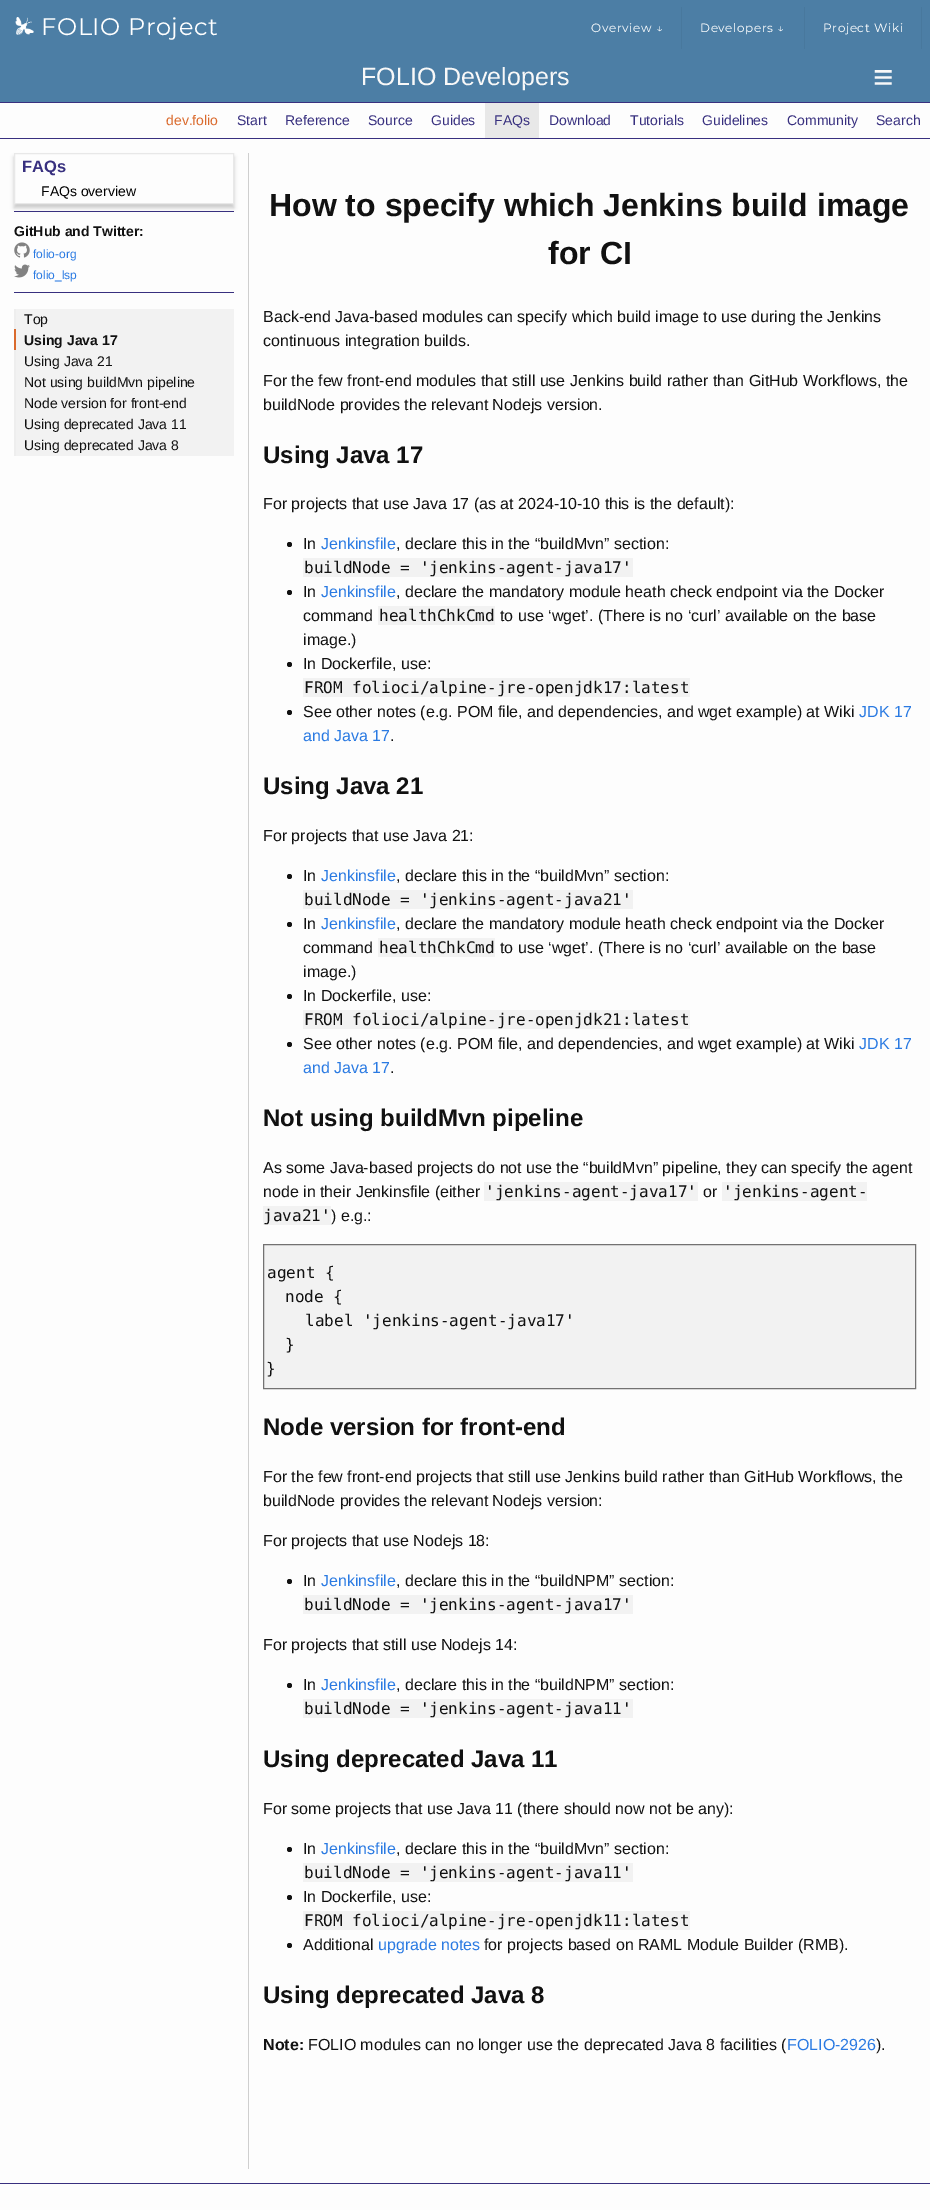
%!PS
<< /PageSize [930 2210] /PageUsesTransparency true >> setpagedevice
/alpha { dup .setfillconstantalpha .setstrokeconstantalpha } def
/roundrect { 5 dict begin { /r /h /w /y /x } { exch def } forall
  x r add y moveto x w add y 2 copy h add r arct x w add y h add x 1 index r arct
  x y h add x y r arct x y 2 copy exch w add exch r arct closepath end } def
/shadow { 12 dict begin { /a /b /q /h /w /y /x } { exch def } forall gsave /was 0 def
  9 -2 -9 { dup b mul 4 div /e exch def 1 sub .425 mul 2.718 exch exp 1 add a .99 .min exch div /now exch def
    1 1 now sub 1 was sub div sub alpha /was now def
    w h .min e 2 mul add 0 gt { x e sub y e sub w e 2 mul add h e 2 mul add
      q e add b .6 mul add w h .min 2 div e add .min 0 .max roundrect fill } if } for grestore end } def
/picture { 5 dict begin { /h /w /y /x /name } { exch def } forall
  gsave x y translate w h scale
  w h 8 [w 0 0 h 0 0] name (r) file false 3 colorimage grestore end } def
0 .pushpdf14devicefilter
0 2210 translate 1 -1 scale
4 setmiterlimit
0.992 setgray
0 0 930 2210 rectfill
0.298 0.494 0.647 setrgbcolor
0 0 930 102 rectfill
(img1.rgb) 15 17 19 18 picture
/Montserrat-Regular [24 0 0 -24 0 0] selectfont
1 setgray
41 35 moveto 0.6 0 (FOLIO Project) ashow
0.282 0.471 0.616 setrgbcolor
681 7 1 42 rectfill
/Montserrat-Regular [12 0 0 -12 0 0] selectfont
1 setgray
591 32 moveto 0.6 0 (Overview ↓) ashow
0.282 0.471 0.616 setrgbcolor
804 7 1 42 rectfill
1 setgray
700 32 moveto 0.6 0 (Developers ↓) ashow
0.282 0.471 0.616 setrgbcolor
921 7 1 42 rectfill
1 setgray
823 32 moveto 0.6 0 (Project Wiki) ashow
/LiberationSans-Regular [25 0 0 -25 0 0] selectfont
0.973 setgray
361 85 moveto (FOLIO Developers) show
/LiberationSans-Regular [35 0 0 -35 0 0] selectfont
873 89 moveto (≡) show
0.22 0.188 0.498 setrgbcolor
0 102 930 1 rectfill
/LiberationSans-Regular [14 0 0 -14 0 0] selectfont
0.855 0.416 0.176 setrgbcolor
166 125 moveto (dev.folio) show
0.22 0.188 0.498 setrgbcolor
237 125 moveto (Start) show
285 125 moveto (Reference) show
368 125 moveto (Source) show
431 125 moveto (Guides) show
0.91 setgray
485 103 54 35 rectfill
0.22 0.188 0.498 setrgbcolor
494 125 moveto (FAQs) show
549 125 moveto (Download) show
630 125 moveto (Tutorials) show
702 125 moveto (Guidelines) show
787 125 moveto (Community) show
876 125 moveto (Search) show
0 138 930 1 rectfill
gsave
newpath 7 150 moveto 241 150 lineto 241 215 lineto 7 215 lineto closepath 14 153 moveto 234 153 lineto 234 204 lineto 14 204 lineto closepath eoclip newpath
0 setgray
14 157 220 51 0 2 0.2 shadow
grestore
0.91 setgray
14.5 153.5 219 50 rectstroke
/LiberationSans-Bold [16.5 0 0 -16.5 0 0] selectfont
0.22 0.188 0.498 setrgbcolor
22 172 moveto (FAQs) show
/LiberationSans-Regular [14 0 0 -14 0 0] selectfont
0 setgray
41 196 moveto (FAQs overview) show
0.22 0.188 0.498 setrgbcolor
14 211 220 1 rectfill
/LiberationSans-Bold [14 0 0 -14 0 0] selectfont
0.067 setgray
14 236 moveto (GitHub and Twitter:) show
(img2.rgb) 14 242 16 16 picture
/LiberationSans-Regular [12 0 0 -12 0 0] selectfont
0.165 0.478 0.886 setrgbcolor
33 258 moveto (folio-org) show
(img3.rgb) 14 264 16 14 picture
33 279 moveto (folio_lsp) show
0.22 0.188 0.498 setrgbcolor
14 292 220 1 rectfill
0.949 setgray
16 309 218 147 rectfill
0.933 setgray
14 309 2 20 rectfill
/LiberationSans-Regular [14 0 0 -14 0 0] selectfont
0.067 setgray
24 324 moveto (Top) show
0.855 0.416 0.176 setrgbcolor
14 329 2 21 rectfill
/LiberationSans-Bold [14 0 0 -14 0 0] selectfont
0.067 setgray
24 345 moveto (Using Java 17) show
0.933 setgray
14 350 2 106 rectfill
/LiberationSans-Regular [14 0 0 -14 0 0] selectfont
0.067 setgray
24 366 moveto (Using Java 21) show
24 387 moveto (Not using buildMvn pipeline) show
24 408 moveto (Node version for front-end) show
24 429 moveto (Using deprecated Java 11) show
24 450 moveto (Using deprecated Java 8) show
0.812 setgray
248 153 1 2016 rectfill
/LiberationSans-Bold [32 0 0 -32 0 0] selectfont
0.067 setgray
269 216 moveto (How to specify which Jenkins build image) show
548 264 moveto (for CI) show
/LiberationSans-Regular [16 0 0 -16 0 0] selectfont
263 322 moveto (Back-end Java-based modules can specify which build image to use during the Jenkins) show
263 346 moveto (continuous integration builds.) show
263 386 moveto (For the few front-end modules that still use Jenkins build rather than GitHub Workflows, the) show
263 410 moveto (buildNode provides the relevant Nodejs version.) show
/LiberationSans-Bold [24 0 0 -24 0 0] selectfont
263 463 moveto (Using Java 17) show
/LiberationSans-Regular [16 0 0 -16 0 0] selectfont
263 509 moveto (For projects that use Java 17 \(as at 2024-10-10 this is the default\):) show
newpath 289.5 544.5 2.5 0 360 arc closepath fill
303 549 moveto (In) show
0.165 0.478 0.886 setrgbcolor
321 549 moveto (Jenkinsfile) show
0.067 setgray
396 549 moveto (, declare this in the “buildMvn” section:) show
0.949 setgray
303 558 330 19 rectfill
/DejaVuSansMono-Regular [16 0 0 -16 0 0] selectfont
0.067 setgray
304 573 moveto (buildNode = 'jenkins-agent-java17') show
newpath 289.5 592.5 2.5 0 360 arc closepath fill
/LiberationSans-Regular [16 0 0 -16 0 0] selectfont
303 597 moveto (In) show
0.165 0.478 0.886 setrgbcolor
321 597 moveto (Jenkinsfile) show
0.067 setgray
396 597 moveto (, declare the mandatory module heath check endpoint via the Docker) show
303 621 moveto (command) show
0.949 setgray
378 606 117 19 rectfill
/DejaVuSansMono-Regular [16 0 0 -16 0 0] selectfont
0.067 setgray
379 621 moveto (healthChkCmd) show
/LiberationSans-Regular [16 0 0 -16 0 0] selectfont
500 621 moveto (to use ‘wget’. \(There is no ‘curl’ available on the base) show
303 645 moveto (image.\)) show
newpath 289.5 664.5 2.5 0 360 arc closepath fill
303 669 moveto (In Dockerfile, use:) show
0.949 setgray
303 678 387 19 rectfill
/DejaVuSansMono-Regular [16 0 0 -16 0 0] selectfont
0.067 setgray
304 693 moveto (FROM folioci/alpine-jre-openjdk17:latest) show
newpath 289.5 712.5 2.5 0 360 arc closepath fill
/LiberationSans-Regular [16 0 0 -16 0 0] selectfont
303 717 moveto (See other notes \(e.g. POM file, and dependencies, and wget example\) at Wiki) show
0.165 0.478 0.886 setrgbcolor
859 717 moveto (JDK 17) show
303 741 moveto (and Java 17) show
0.067 setgray
390 741 moveto (.) show
/LiberationSans-Bold [24 0 0 -24 0 0] selectfont
263 794 moveto (Using Java 21) show
/LiberationSans-Regular [16 0 0 -16 0 0] selectfont
263 841 moveto (For projects that use Java 21:) show
newpath 289.5 876.5 2.5 0 360 arc closepath fill
303 881 moveto (In) show
0.165 0.478 0.886 setrgbcolor
321 881 moveto (Jenkinsfile) show
0.067 setgray
396 881 moveto (, declare this in the “buildMvn” section:) show
0.949 setgray
303 890 330 19 rectfill
/DejaVuSansMono-Regular [16 0 0 -16 0 0] selectfont
0.067 setgray
304 905 moveto (buildNode = 'jenkins-agent-java21') show
newpath 289.5 924.5 2.5 0 360 arc closepath fill
/LiberationSans-Regular [16 0 0 -16 0 0] selectfont
303 929 moveto (In) show
0.165 0.478 0.886 setrgbcolor
321 929 moveto (Jenkinsfile) show
0.067 setgray
396 929 moveto (, declare the mandatory module heath check endpoint via the Docker) show
303 953 moveto (command) show
0.949 setgray
378 938 117 19 rectfill
/DejaVuSansMono-Regular [16 0 0 -16 0 0] selectfont
0.067 setgray
379 953 moveto (healthChkCmd) show
/LiberationSans-Regular [16 0 0 -16 0 0] selectfont
500 953 moveto (to use ‘wget’. \(There is no ‘curl’ available on the base) show
303 977 moveto (image.\)) show
newpath 289.5 996.5 2.5 0 360 arc closepath fill
303 1001 moveto (In Dockerfile, use:) show
0.949 setgray
303 1010 387 19 rectfill
/DejaVuSansMono-Regular [16 0 0 -16 0 0] selectfont
0.067 setgray
304 1025 moveto (FROM folioci/alpine-jre-openjdk21:latest) show
newpath 289.5 1044.5 2.5 0 360 arc closepath fill
/LiberationSans-Regular [16 0 0 -16 0 0] selectfont
303 1049 moveto (See other notes \(e.g. POM file, and dependencies, and wget example\) at Wiki) show
0.165 0.478 0.886 setrgbcolor
859 1049 moveto (JDK 17) show
303 1073 moveto (and Java 17) show
0.067 setgray
390 1073 moveto (.) show
/LiberationSans-Bold [24 0 0 -24 0 0] selectfont
263 1126 moveto (Not using buildMvn pipeline) show
/LiberationSans-Regular [16 0 0 -16 0 0] selectfont
263 1173 moveto (As some Java-based projects do not use the “buildMvn” pipeline, they can specify the agent) show
263 1197 moveto (node in their Jenkinsfile \(either) show
0.949 setgray
484 1182 214 19 rectfill
/DejaVuSansMono-Regular [16 0 0 -16 0 0] selectfont
0.067 setgray
485 1197 moveto ('jenkins-agent-java17') show
/LiberationSans-Regular [16 0 0 -16 0 0] selectfont
703 1197 moveto (or) show
0.949 setgray
722 1182 145 19 rectfill
/DejaVuSansMono-Regular [16 0 0 -16 0 0] selectfont
0.067 setgray
723 1197 moveto ('jenkins-agent-) show
0.949 setgray
263 1206 68 19 rectfill
0.067 setgray
263 1221 moveto (java21') show
/LiberationSans-Regular [16 0 0 -16 0 0] selectfont
331 1221 moveto (\) e.g.:) show
0.949 setgray
newpath 263.5 1244.5 moveto 915.5 1244.5 lineto 915.5 1388.5 lineto 263.5 1388.5 lineto closepath gsave fill grestore
0.451 0.447 0.447 setrgbcolor
stroke
/DejaVuSansMono-Regular [16 0 0 -16 0 0] selectfont
0.067 setgray
267 1278 moveto (agent {) show
285 1302 moveto (node {) show
305 1326 moveto (label 'jenkins-agent-java17') show
285 1350 moveto (}) show
266 1374 moveto (}) show
/LiberationSans-Bold [24 0 0 -24 0 0] selectfont
263 1435 moveto (Node version for front-end) show
/LiberationSans-Regular [16 0 0 -16 0 0] selectfont
263 1482 moveto (For the few front-end projects that still use Jenkins build rather than GitHub Workflows, the) show
263 1506 moveto (buildNode provides the relevant Nodejs version:) show
263 1546 moveto (For projects that use Nodejs 18:) show
newpath 289.5 1581.5 2.5 0 360 arc closepath fill
303 1586 moveto (In) show
0.165 0.478 0.886 setrgbcolor
321 1586 moveto (Jenkinsfile) show
0.067 setgray
396 1586 moveto (, declare this in the “buildNPM” section:) show
0.949 setgray
303 1595 330 19 rectfill
/DejaVuSansMono-Regular [16 0 0 -16 0 0] selectfont
0.067 setgray
304 1610 moveto (buildNode = 'jenkins-agent-java17') show
/LiberationSans-Regular [16 0 0 -16 0 0] selectfont
263 1650 moveto (For projects that still use Nodejs 14:) show
newpath 289.5 1685.5 2.5 0 360 arc closepath fill
303 1690 moveto (In) show
0.165 0.478 0.886 setrgbcolor
321 1690 moveto (Jenkinsfile) show
0.067 setgray
396 1690 moveto (, declare this in the “buildNPM” section:) show
0.949 setgray
303 1699 330 19 rectfill
/DejaVuSansMono-Regular [16 0 0 -16 0 0] selectfont
0.067 setgray
304 1714 moveto (buildNode = 'jenkins-agent-java11') show
/LiberationSans-Bold [24 0 0 -24 0 0] selectfont
263 1767 moveto (Using deprecated Java 11) show
/LiberationSans-Regular [16 0 0 -16 0 0] selectfont
263 1814 moveto (For some projects that use Java 11 \(there should now not be any\):) show
newpath 289.5 1849.5 2.5 0 360 arc closepath fill
303 1854 moveto (In) show
0.165 0.478 0.886 setrgbcolor
321 1854 moveto (Jenkinsfile) show
0.067 setgray
396 1854 moveto (, declare this in the “buildMvn” section:) show
0.949 setgray
303 1863 330 19 rectfill
/DejaVuSansMono-Regular [16 0 0 -16 0 0] selectfont
0.067 setgray
304 1878 moveto (buildNode = 'jenkins-agent-java11') show
newpath 289.5 1897.5 2.5 0 360 arc closepath fill
/LiberationSans-Regular [16 0 0 -16 0 0] selectfont
303 1902 moveto (In Dockerfile, use:) show
0.949 setgray
303 1911 387 19 rectfill
/DejaVuSansMono-Regular [16 0 0 -16 0 0] selectfont
0.067 setgray
304 1926 moveto (FROM folioci/alpine-jre-openjdk11:latest) show
newpath 289.5 1945.5 2.5 0 360 arc closepath fill
/LiberationSans-Regular [16 0 0 -16 0 0] selectfont
303 1950 moveto (Additional) show
0.165 0.478 0.886 setrgbcolor
378 1950 moveto (upgrade notes) show
0.067 setgray
484 1950 moveto (for projects based on RAML Module Builder \(RMB\).) show
/LiberationSans-Bold [24 0 0 -24 0 0] selectfont
263 2003 moveto (Using deprecated Java 8) show
/LiberationSans-Bold [16 0 0 -16 0 0] selectfont
263 2050 moveto (Note:) show
/LiberationSans-Regular [16 0 0 -16 0 0] selectfont
308 2050 moveto (FOLIO modules can no longer use the deprecated Java 8 facilities \() show
0.165 0.478 0.886 setrgbcolor
787 2050 moveto (FOLIO-2926) show
0.067 setgray
876 2050 moveto (\).) show
0.22 0.188 0.498 setrgbcolor
0 2183 930 1 rectfill
.poppdf14devicefilter showpage
